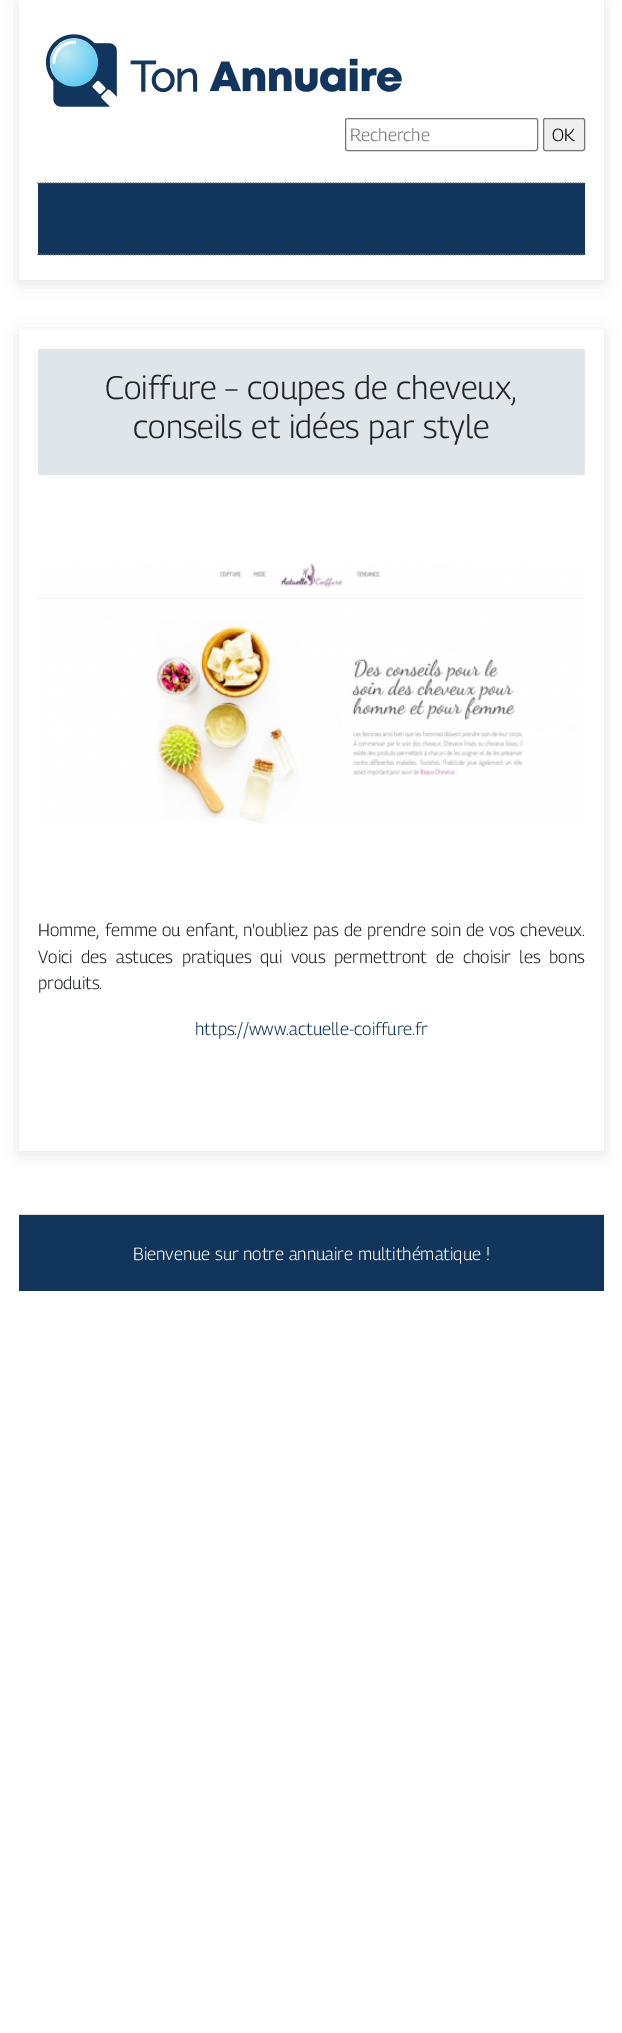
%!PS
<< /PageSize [622 2033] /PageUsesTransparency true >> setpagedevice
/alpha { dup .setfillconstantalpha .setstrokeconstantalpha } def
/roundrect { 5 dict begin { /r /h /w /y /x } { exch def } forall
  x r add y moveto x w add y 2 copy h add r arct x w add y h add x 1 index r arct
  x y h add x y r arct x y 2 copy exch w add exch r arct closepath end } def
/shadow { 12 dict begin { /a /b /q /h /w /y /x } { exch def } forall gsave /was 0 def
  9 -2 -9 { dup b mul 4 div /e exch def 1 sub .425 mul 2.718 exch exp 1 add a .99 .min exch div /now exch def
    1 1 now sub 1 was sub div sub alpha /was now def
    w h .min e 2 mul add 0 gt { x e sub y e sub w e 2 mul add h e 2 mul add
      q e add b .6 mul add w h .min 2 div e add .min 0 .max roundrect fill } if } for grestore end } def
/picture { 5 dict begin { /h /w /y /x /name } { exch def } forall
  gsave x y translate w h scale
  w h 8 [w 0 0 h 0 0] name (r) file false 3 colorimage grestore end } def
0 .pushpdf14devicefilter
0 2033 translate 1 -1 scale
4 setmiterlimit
1 setgray
0 0 622 2033 rectfill
0 setgray
19 3 585 280 0 8 0.1 shadow
1 setgray
19 0 585 280 rectfill
(img1.rgb) 45 34 357 73 picture
0.463 setgray
345.5 118.5 192 32 2 roundrect stroke
/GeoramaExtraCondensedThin-Thin [17.5 0 0 -17.5 0 0] selectfont
0.459 setgray
350 141 moveto (Recherche) show
0.937 setgray
543.5 118.5 41 32 2 roundrect gsave fill grestore
0.463 setgray
stroke
0 setgray
552 141 moveto (OK) show
0.067 0.208 0.361 setrgbcolor
38 183 547 72 rectfill
0.4 setgray
1.2 setlinewidth
[1.25 1.25] 0 setdash
newpath 37.5 183 moveto 585 183 lineto stroke
newpath 37.5 254.5 moveto 585 254.5 lineto stroke
0 setgray
19 333 585 821 0 8 0.1 shadow
1 setgray
19 330 585 821 rectfill
0.878 0.898 0.918 setrgbcolor
38 349 547 126 rectfill
/GeoramaExtraCondensedThin-Thin [32.5 0 0 -32.5 0 0] selectfont
0.129 0.145 0.161 setrgbcolor
105 399 moveto (Coiffure – coupes de cheveux,) show
133 438 moveto (conseils et idées par style) show
(img2.rgb) 37 563 548 261 picture
/GeoramaExtraCondensedThin-Thin [17.5 0 0 -17.5 0 0] selectfont
38 936 moveto 0.5 0 32 (Homme, femme ou enfant, n'oubliez pas de prendre soin de vos cheveux.) widthshow
38 963 moveto 4 0 32 (Voici des astuces pratiques qui vous permettront de choisir les bons) widthshow
38 989 moveto (produits.) show
0.067 0.208 0.361 setrgbcolor
195 1035 moveto (https://www.actuelle-coiffure.fr) show
0.067 0.208 0.357 setrgbcolor
19 1215 585 76 rectfill
0.867 setgray
19 1214 585 1 rectfill
1 setgray
133 1260 moveto (Bienvenue sur notre annuaire multithématique !) show
.poppdf14devicefilter showpage
